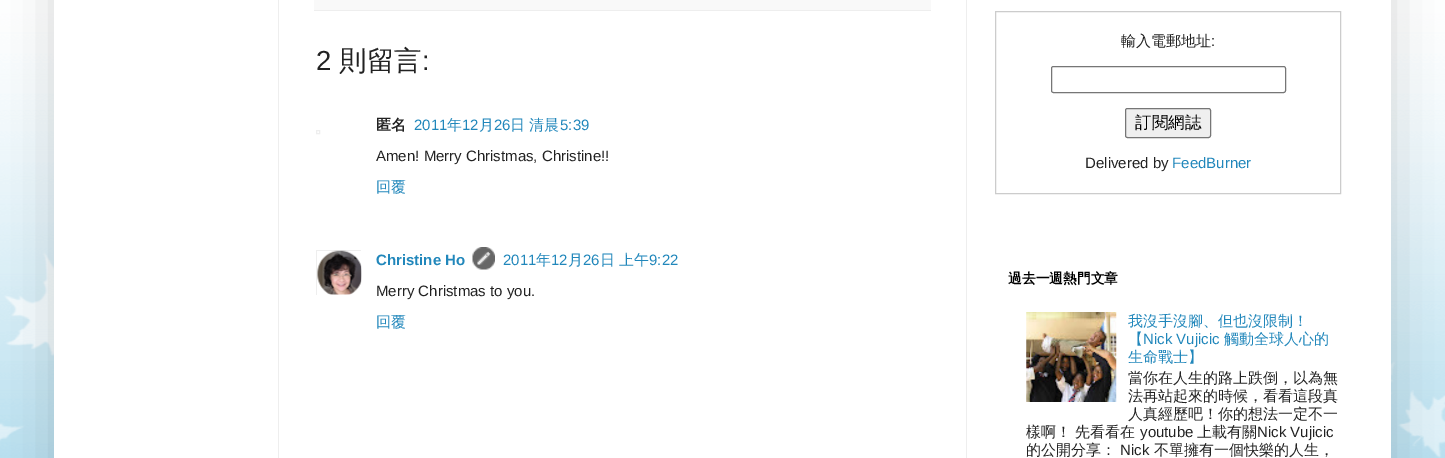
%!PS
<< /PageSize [1445 458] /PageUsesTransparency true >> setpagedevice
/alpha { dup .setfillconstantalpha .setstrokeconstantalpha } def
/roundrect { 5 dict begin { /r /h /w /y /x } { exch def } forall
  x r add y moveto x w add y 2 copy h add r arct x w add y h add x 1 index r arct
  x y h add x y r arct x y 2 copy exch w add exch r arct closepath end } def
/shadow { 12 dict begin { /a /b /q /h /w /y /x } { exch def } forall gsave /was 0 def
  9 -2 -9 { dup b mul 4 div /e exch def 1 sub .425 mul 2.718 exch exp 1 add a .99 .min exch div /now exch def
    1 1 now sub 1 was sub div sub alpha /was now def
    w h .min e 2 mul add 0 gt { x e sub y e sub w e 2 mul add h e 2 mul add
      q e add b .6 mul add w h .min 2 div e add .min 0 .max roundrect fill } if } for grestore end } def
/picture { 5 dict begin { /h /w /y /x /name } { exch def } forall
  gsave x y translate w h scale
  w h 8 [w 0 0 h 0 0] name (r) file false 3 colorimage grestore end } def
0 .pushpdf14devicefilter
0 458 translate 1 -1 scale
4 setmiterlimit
0.4 0.733 0.867 setrgbcolor
0 0 1445 458 rectfill
(img1.rgb) 0 0 1445 458 picture
0 setgray
54 -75 1337 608 0 25 0.15 shadow
1 setgray
54 0 1337 458 rectfill
0.933 setgray
278 0 1 458 rectfill
966 0 1 458 rectfill
0.976 setgray
314 0 617 10 rectfill
0.933 setgray
314 10 617 1 rectfill
/LiberationSans-Regular [27.5 0 0 -27.5 0 0] selectfont
0.133 setgray
316 70 moveto (2) show
/WenQuanYiZenHei-Medium [27.5 0 0 -27.5 0 0] selectfont
339 70 moveto (則留言) show
/LiberationSans-Regular [27.5 0 0 -27.5 0 0] selectfont
422 70 moveto (:) show
0.933 setgray
316.5 130.5 3 3 rectstroke
/WenQuanYiZenHei-Bold [15 0 0 -15 0 0] selectfont
0.133 setgray
376 130 moveto (匿名) show
/LiberationSans-Regular [15 0 0 -15 0 0] selectfont
0.129 0.529 0.733 setrgbcolor
414 130 moveto (2011) show
/WenQuanYiZenHei-Medium [15 0 0 -15 0 0] selectfont
447 130 moveto (年) show
/LiberationSans-Regular [15 0 0 -15 0 0] selectfont
462 130 moveto (12) show
/WenQuanYiZenHei-Medium [15 0 0 -15 0 0] selectfont
479 130 moveto (月) show
/LiberationSans-Regular [15 0 0 -15 0 0] selectfont
494 130 moveto (26) show
/WenQuanYiZenHei-Medium [15 0 0 -15 0 0] selectfont
510 130 moveto (日 清晨) show
/LiberationSans-Regular [15 0 0 -15 0 0] selectfont
560 130 moveto (5:39) show
0.133 setgray
376 161 moveto (Amen! Merry Christmas, Christine!!) show
/WenQuanYiZenHei-Medium [15 0 0 -15 0 0] selectfont
0.129 0.529 0.733 setrgbcolor
376 192 moveto (回覆) show
gsave
316 250 45 45 rectclip
0.933 setgray
316.5 250.5 47 47 rectstroke
grestore
(img2.rgb) 317 250 45 45 picture
/LiberationSans-Bold [15 0 0 -15 0 0] selectfont
376 265 moveto (Christine Ho) show
(img3.rgb) 472 247 23 23 picture
/LiberationSans-Regular [15 0 0 -15 0 0] selectfont
503 265 moveto (2011) show
/WenQuanYiZenHei-Medium [15 0 0 -15 0 0] selectfont
536 265 moveto (年) show
/LiberationSans-Regular [15 0 0 -15 0 0] selectfont
551 265 moveto (12) show
/WenQuanYiZenHei-Medium [15 0 0 -15 0 0] selectfont
568 265 moveto (月) show
/LiberationSans-Regular [15 0 0 -15 0 0] selectfont
583 265 moveto (26) show
/WenQuanYiZenHei-Medium [15 0 0 -15 0 0] selectfont
600 265 moveto (日 上午) show
/LiberationSans-Regular [15 0 0 -15 0 0] selectfont
649 265 moveto (9:22) show
0.133 setgray
376 296 moveto (Merry Christmas to you.) show
/WenQuanYiZenHei-Medium [15 0 0 -15 0 0] selectfont
0.129 0.529 0.733 setrgbcolor
376 327 moveto (回覆) show
0.8 setgray
995.5 11.5 345 182 rectstroke
0.133 setgray
1121 46 moveto (輸入電郵地址) show
/LiberationSans-Regular [15 0 0 -15 0 0] selectfont
1211 46 moveto (:) show
0.463 setgray
1051.5 66.5 234 26 2 roundrect stroke
0.937 setgray
1125.5 108.5 85 29 2 roundrect gsave fill grestore
0.463 setgray
stroke
/WenQuanYiZenHei-Medium [16.5 0 0 -16.5 0 0] selectfont
0 setgray
1135 128 moveto (訂閱網誌) show
/LiberationSans-Regular [15 0 0 -15 0 0] selectfont
0.133 setgray
1085 168 moveto (Delivered by) show
0.129 0.529 0.733 setrgbcolor
1172 168 moveto (FeedBurner) show
/WenQuanYiZenHei-Bold [13.75 0 0 -13.75 0 0] selectfont
0 setgray
1008 283 moveto (過去一週熱門文章) show
(img4.rgb) 1026 312 91 90 picture
/WenQuanYiZenHei-Medium [15 0 0 -15 0 0] selectfont
0.129 0.529 0.733 setrgbcolor
1128 326 moveto (我沒手沒腳、但也沒限制！) show
1128 344 moveto (【) show
/LiberationSans-Regular [15 0 0 -15 0 0] selectfont
1143 344 moveto (Nick Vujicic) show
/WenQuanYiZenHei-Medium [15 0 0 -15 0 0] selectfont
1224 344 moveto (觸動全球人心的) show
1128 362 moveto (生命戰士】) show
0.133 setgray
1128 383 moveto (當你在人生的路上跌倒，以為無) show
1128 401 moveto (法再站起來的時候，看看這段真) show
1128 419 moveto (人真經歷吧！你的想法一定不一) show
1026 437 moveto (樣啊！) show
1075 437 moveto (先看看在) show
/LiberationSans-Regular [15 0 0 -15 0 0] selectfont
1140 437 moveto (youtube) show
/WenQuanYiZenHei-Medium [15 0 0 -15 0 0] selectfont
1197 437 moveto (上載有關) show
/LiberationSans-Regular [15 0 0 -15 0 0] selectfont
1257 437 moveto (Nick Vujicic) show
/WenQuanYiZenHei-Medium [15 0 0 -15 0 0] selectfont
1026 455 moveto (的公開分享：) show
/LiberationSans-Regular [15 0 0 -15 0 0] selectfont
1120 455 moveto (Nick) show
/WenQuanYiZenHei-Medium [15 0 0 -15 0 0] selectfont
1154 455 moveto (不單擁有一個快樂的人生，) show
.poppdf14devicefilter showpage
